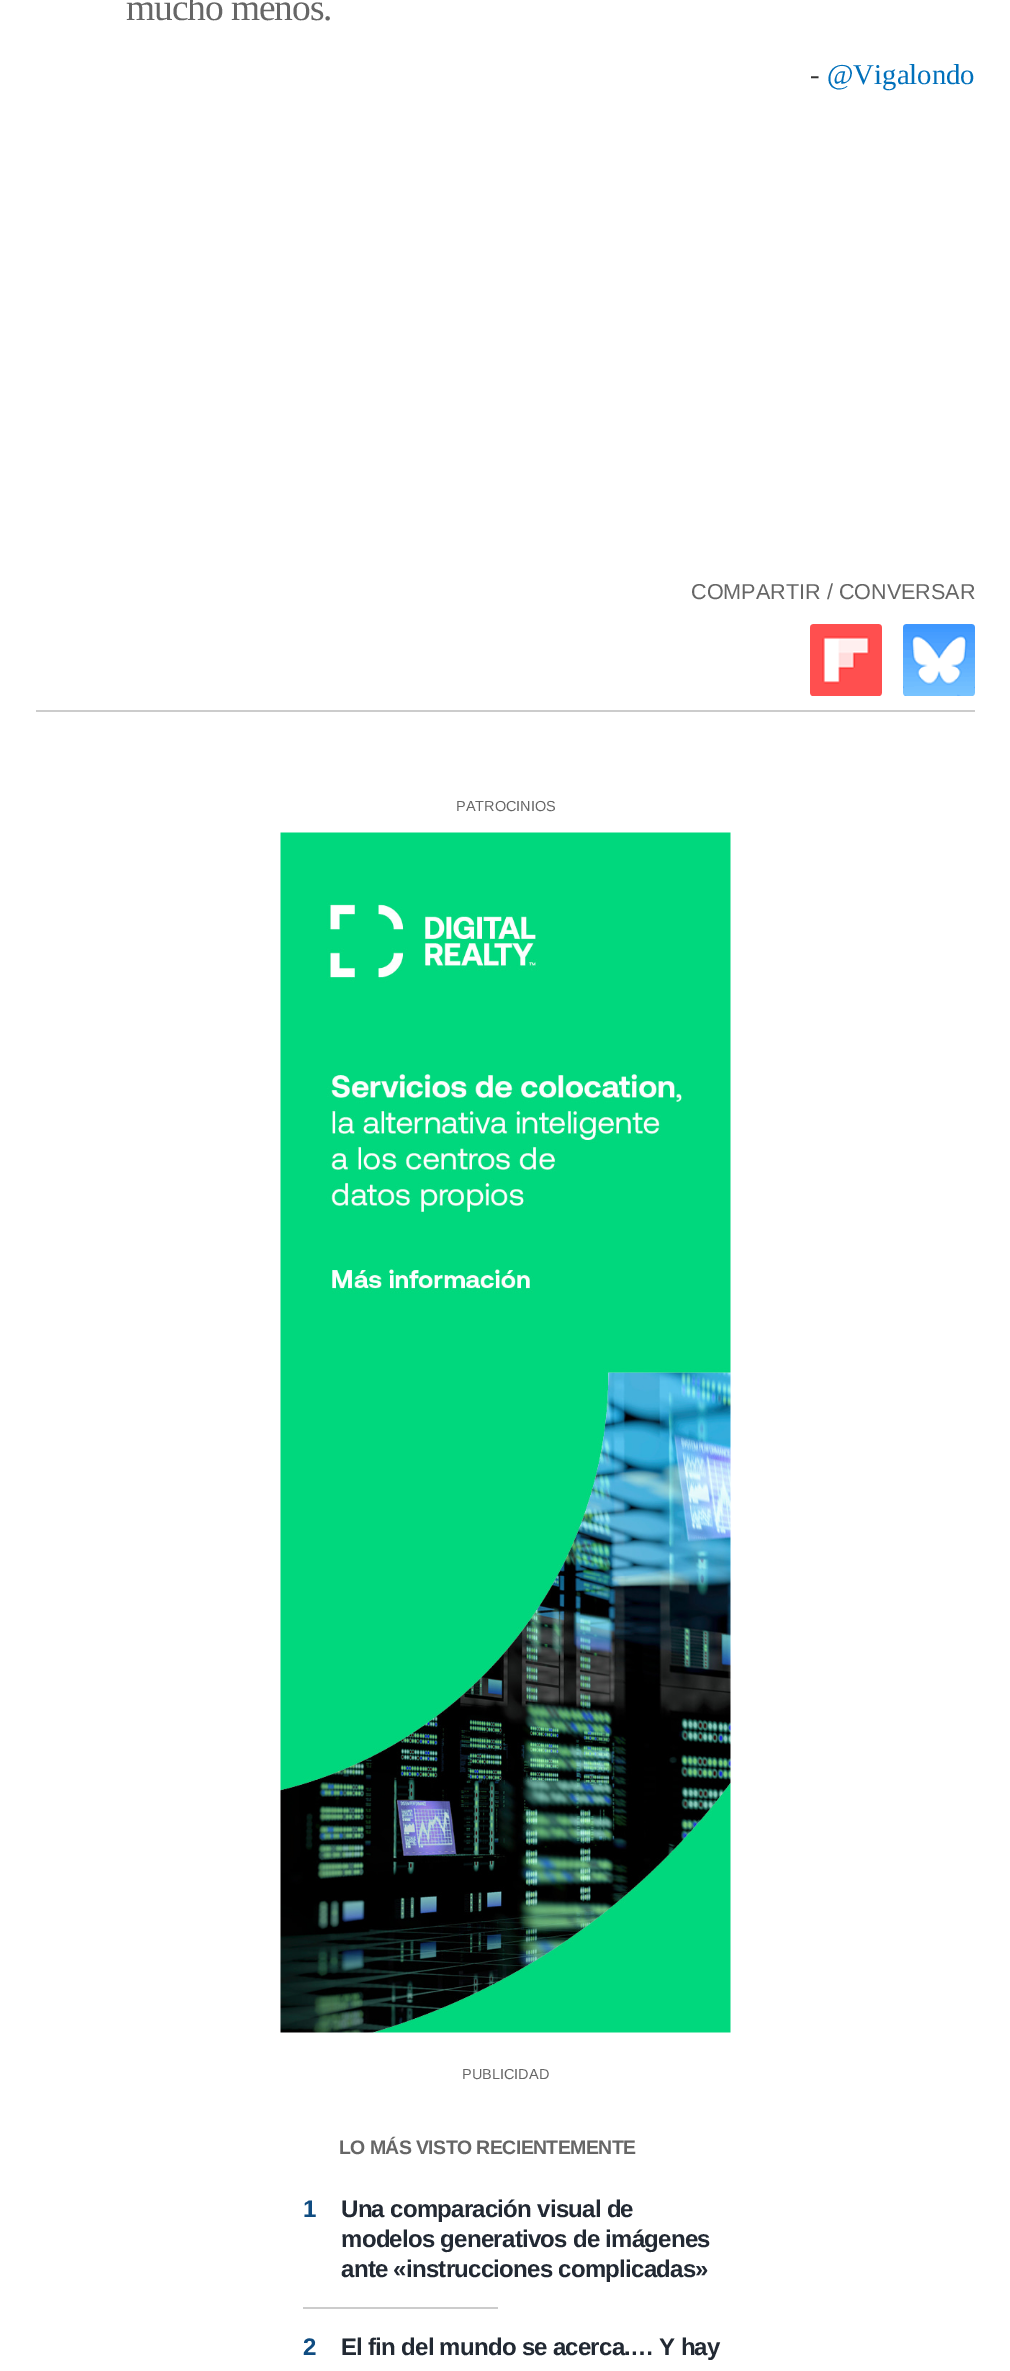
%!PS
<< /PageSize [1010 2371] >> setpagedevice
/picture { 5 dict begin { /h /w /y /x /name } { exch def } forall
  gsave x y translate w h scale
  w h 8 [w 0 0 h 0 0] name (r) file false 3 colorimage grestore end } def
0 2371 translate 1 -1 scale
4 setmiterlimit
1 setgray
0 0 1010 2371 rectfill
0.8 setgray
36 710 939 2 rectfill
/LiberationSerif-Regular [37.5 0 0 -37.5 0 0] selectfont
0.4 setgray
126 20 moveto -1.1 0 (mucho menos.) ashow
/LiberationSerif-Regular [28.75 0 0 -28.75 0 0] selectfont
0.2 setgray
810 84 moveto (-) show
0 0.439 0.733 setrgbcolor
827 84 moveto (@Vigalondo) show
/LiberationSans-Regular [21.6 0 0 -21.6 0 0] selectfont
0.4 setgray
691 599 moveto (COMPARTIR / CONVERSAR) show
(img1.rgb) 810 624 72 72 picture
(img2.rgb) 903 624 72 72 picture
/LiberationSans-Regular [14.5 0 0 -14.5 0 0] selectfont
456 811 moveto (PATROCINIOS) show
(img3.rgb) 280 832 451 1201 picture
462 2079 moveto (PUBLICIDAD) show
/LiberationSans-Bold [19.5 0 0 -19.5 0 0] selectfont
339 2154 moveto -0.6 0 (LO MÁS VISTO RECIENTEMENTE) ashow
/LiberationSans-Bold [24 0 0 -24 0 0] selectfont
0.059 0.298 0.506 setrgbcolor
303 2217 moveto -0.75 0 (1) ashow
0.133 0.161 0.2 setrgbcolor
341 2217 moveto -0.75 0 (Una comparación visual de) ashow
341 2247 moveto -0.75 0 (modelos generativos de imágenes) ashow
341 2277 moveto -0.75 0 (ante «instrucciones complicadas») ashow
0.8 setgray
303 2307 195 2 rectfill
0.059 0.298 0.506 setrgbcolor
303 2355 moveto -0.75 0 (2) ashow
0.133 0.161 0.2 setrgbcolor
341 2355 moveto -0.75 0 (El fin del mundo se acerca.… Y hay) ashow
showpage
